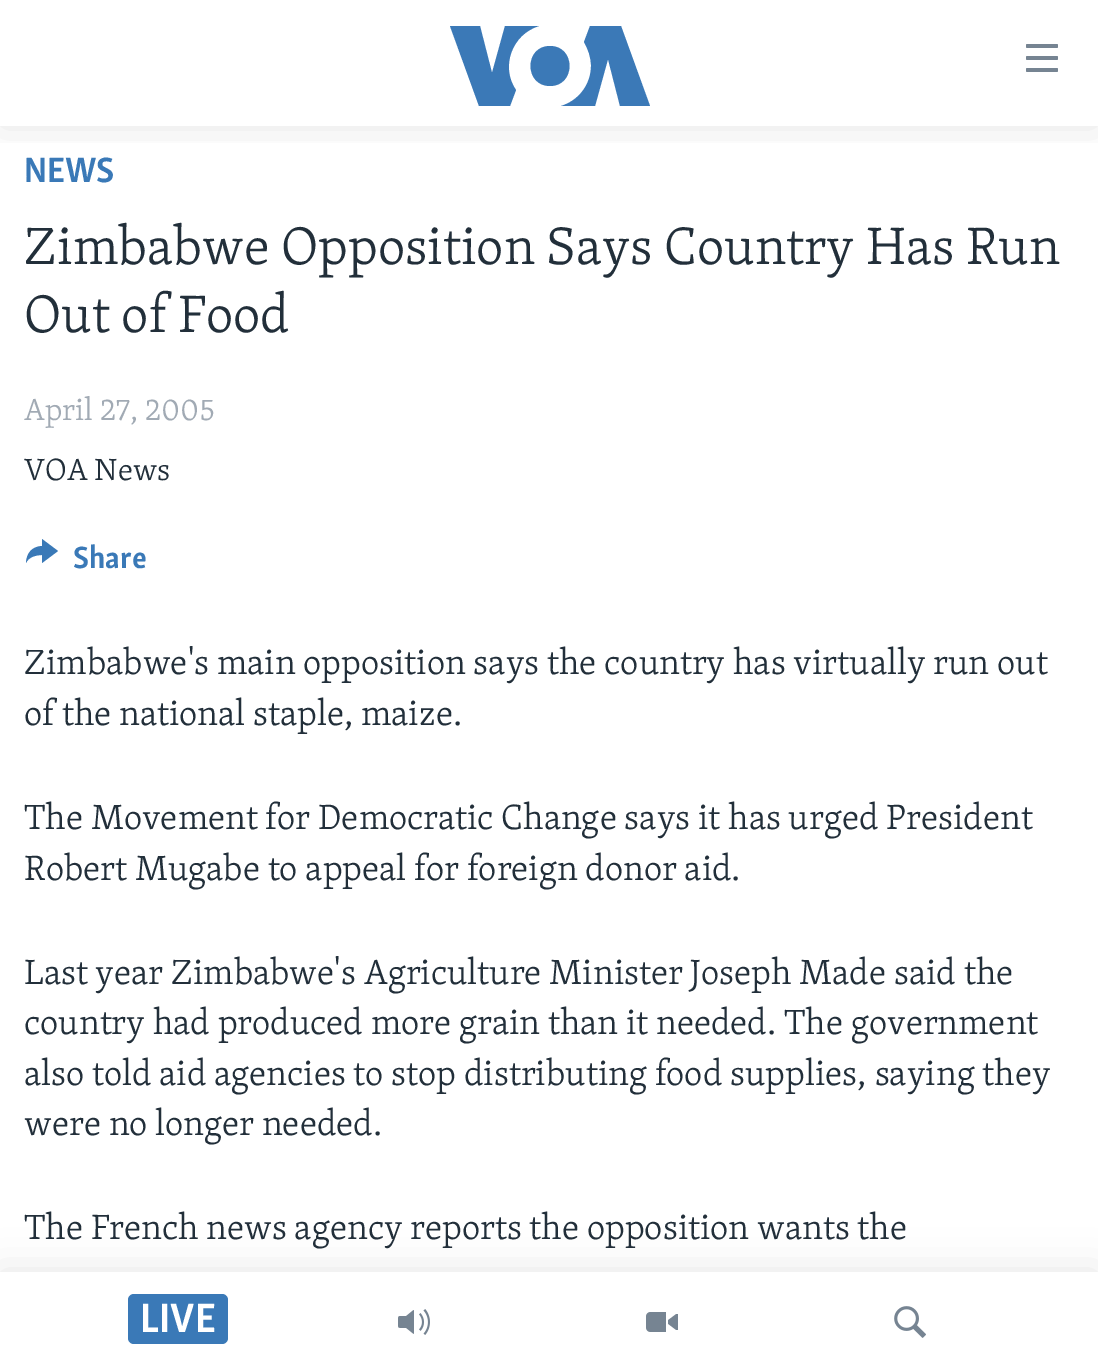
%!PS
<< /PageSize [1098 1371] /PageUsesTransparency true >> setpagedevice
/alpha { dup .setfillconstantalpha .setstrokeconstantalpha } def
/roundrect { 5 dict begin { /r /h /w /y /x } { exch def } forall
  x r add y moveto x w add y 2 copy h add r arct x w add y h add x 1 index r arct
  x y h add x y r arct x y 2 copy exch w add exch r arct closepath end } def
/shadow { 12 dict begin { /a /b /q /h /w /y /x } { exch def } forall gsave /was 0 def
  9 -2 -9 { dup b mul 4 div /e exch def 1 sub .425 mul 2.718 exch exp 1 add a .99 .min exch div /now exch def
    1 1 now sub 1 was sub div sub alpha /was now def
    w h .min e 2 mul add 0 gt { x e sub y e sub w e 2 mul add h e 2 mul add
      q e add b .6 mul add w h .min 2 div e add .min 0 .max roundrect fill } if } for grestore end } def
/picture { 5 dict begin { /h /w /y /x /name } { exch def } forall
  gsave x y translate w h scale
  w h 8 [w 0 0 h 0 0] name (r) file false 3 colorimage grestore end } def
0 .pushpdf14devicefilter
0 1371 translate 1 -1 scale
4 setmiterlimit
1 setgray
0 0 1098 1371 rectfill
/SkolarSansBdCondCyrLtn-Bold [36 0 0 -36 0 0] selectfont
0.227 0.475 0.718 setrgbcolor
24 182 moveto (NEWS) show
/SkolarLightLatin-Light [54 0 0 -54 0 0] selectfont
0.133 0.184 0.227 setrgbcolor
24 264 moveto (Zimbabwe Opposition Says Country Has Run) show
24 332 moveto (Out of Food) show
/SkolarLightLatin-Light [31.5 0 0 -31.5 0 0] selectfont
0.631 0.667 0.706 setrgbcolor
24 420 moveto (April 27, 2005) show
0.133 0.184 0.227 setrgbcolor
24 480 moveto (VOA News) show
0.227 0.475 0.718 setrgbcolor
newpath 26 563 moveto 26.5 553 32 546.5 42 546 curveto 42 539 lineto 58 551 lineto 42 563 lineto 42 555 lineto 36 555 28.5 557 26 563 curveto closepath fill
/SkolarSansBdCondCyrLtn-Bold [31.5 0 0 -31.5 0 0] selectfont
73 568 moveto (Share) show
/SkolarLightLatin-Light [36 0 0 -36 0 0] selectfont
0.133 0.184 0.227 setrgbcolor
24 674 moveto (Zimbabwe's main opposition says the country has virtually run out) show
24 725 moveto (of the national staple, maize.) show
24 829 moveto (The Movement for Democratic Change says it has urged President) show
24 880 moveto (Robert Mugabe to appeal for foreign donor aid.) show
24 984 moveto (Last year Zimbabwe's Agriculture Minister Joseph Made said the) show
24 1034 moveto (country had produced more grain than it needed. The government) show
24 1085 moveto (also told aid agencies to stop distributing food supplies, saying they) show
24 1135 moveto (were no longer needed.) show
24 1239 moveto (The French news agency reports the opposition wants the) show
gsave
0 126 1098 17 rectclip
0 setgray
0 0 1098 126 0 20 0.1 shadow
grestore
0.231 0.475 0.718 setrgbcolor
newpath 516 90 moveto 510 106 lineto 479 106 lineto 450 26 lineto 480 26 lineto 492 73 lineto 505 26 lineto 539 26 lineto 512 34 500 67 516 90 curveto closepath 550 46 moveto 524 46 524 86 550 86 curveto 576 86 576 46 550 46 curveto closepath 591 66 moveto 591 85 578 101 561 106 curveto 595 106 lineto 608 59 lineto 620 106 lineto 650 106 lineto 621 26 lineto 590 26 lineto 584 42 lineto 588 49 591 57 591 66 curveto closepath fill
(img1.rgb) 1026 44 32 28 picture
0 setgray
0 1272 1098 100 0 20 0.1 shadow
1 setgray
0 1272 1098 99 rectfill
0.227 0.475 0.718 setrgbcolor
128 1294 100 50 6 roundrect fill
/SkolarSansBdCondCyrLtn-Bold [42 0 0 -42 0 0] selectfont
1 setgray
140 1332 moveto (LIVE) show
(img2.rgb) 398 1309 32 26 picture
(img3.rgb) 646 1312 32 20 picture
(img4.rgb) 894 1306 32 32 picture
.poppdf14devicefilter showpage
